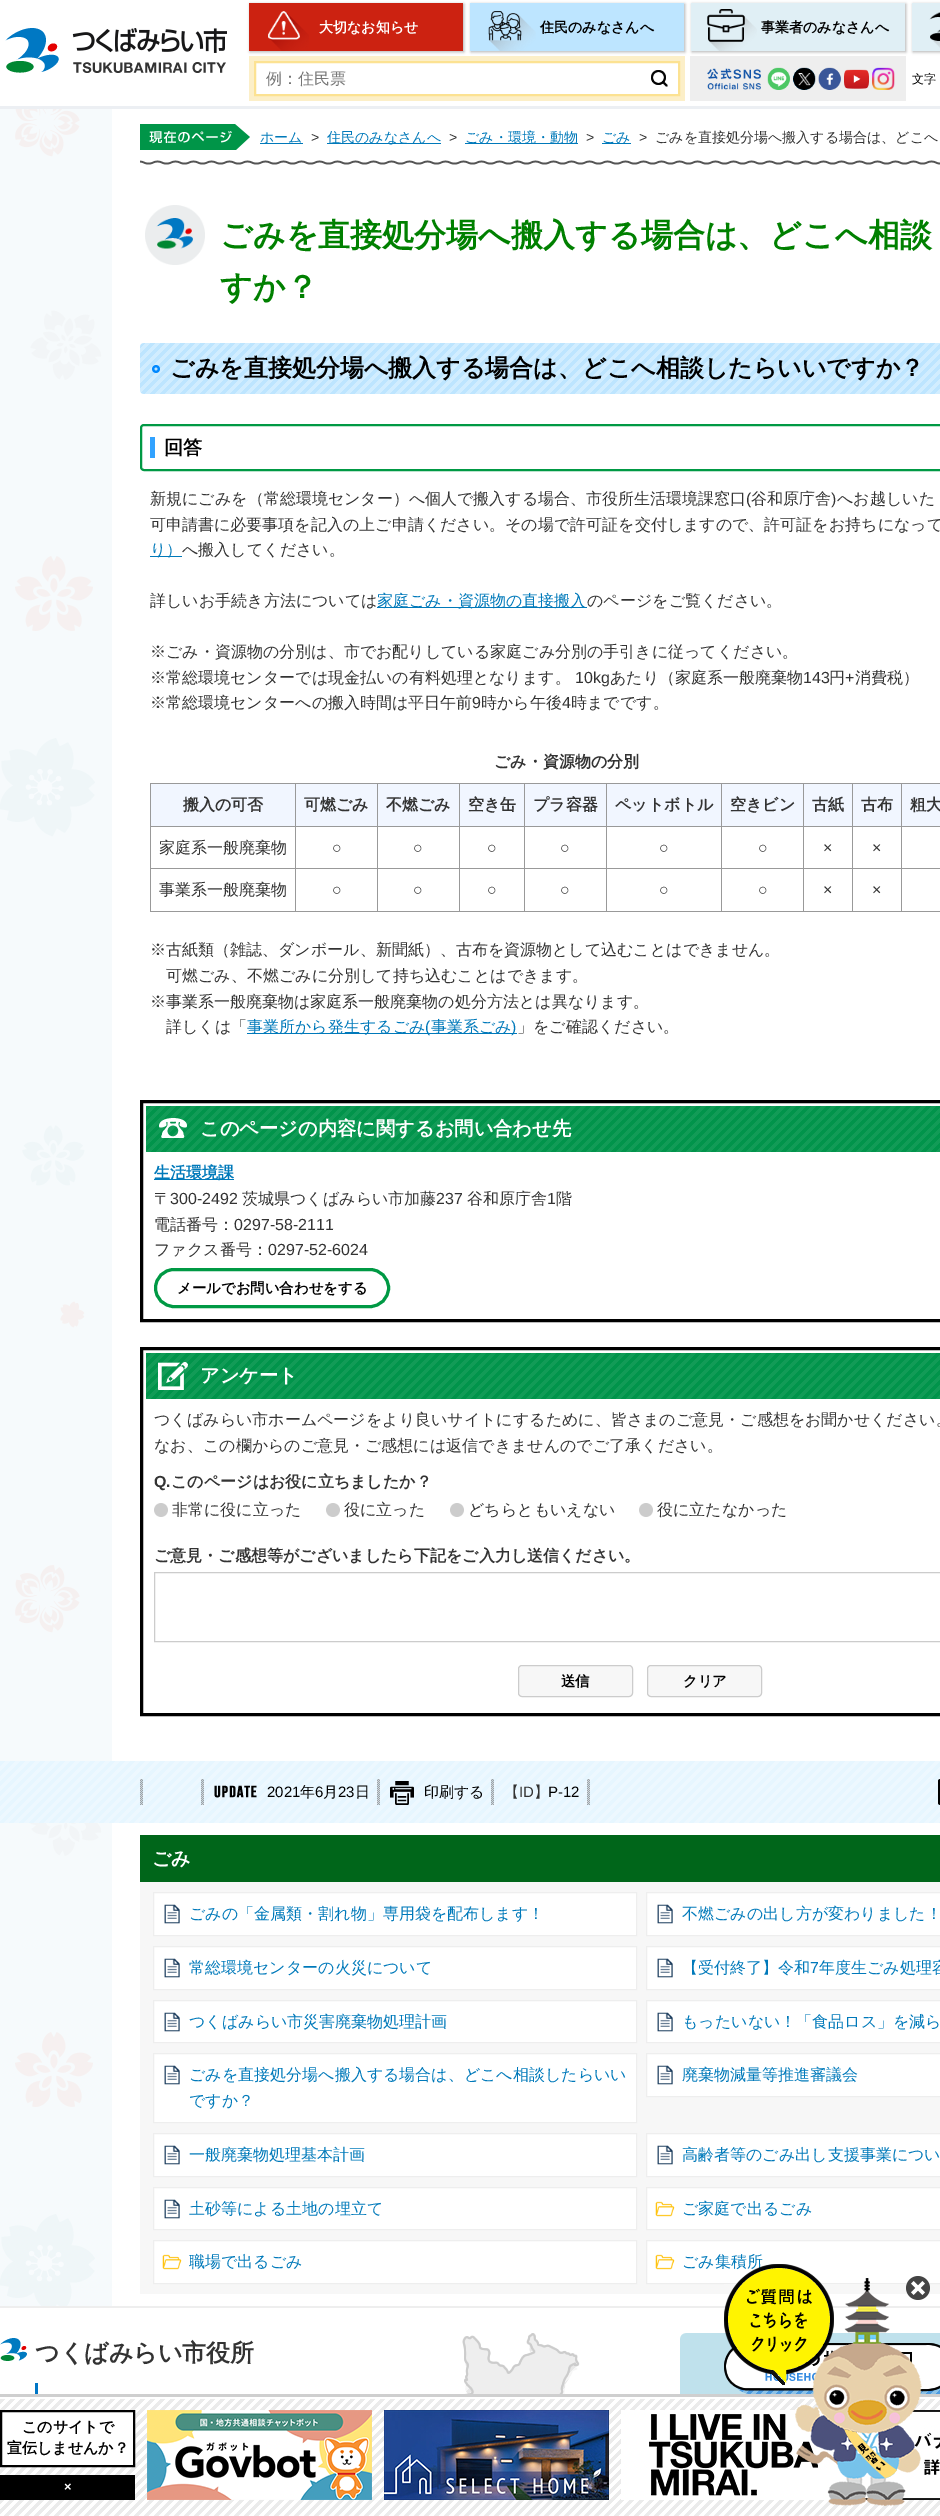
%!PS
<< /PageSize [940 2516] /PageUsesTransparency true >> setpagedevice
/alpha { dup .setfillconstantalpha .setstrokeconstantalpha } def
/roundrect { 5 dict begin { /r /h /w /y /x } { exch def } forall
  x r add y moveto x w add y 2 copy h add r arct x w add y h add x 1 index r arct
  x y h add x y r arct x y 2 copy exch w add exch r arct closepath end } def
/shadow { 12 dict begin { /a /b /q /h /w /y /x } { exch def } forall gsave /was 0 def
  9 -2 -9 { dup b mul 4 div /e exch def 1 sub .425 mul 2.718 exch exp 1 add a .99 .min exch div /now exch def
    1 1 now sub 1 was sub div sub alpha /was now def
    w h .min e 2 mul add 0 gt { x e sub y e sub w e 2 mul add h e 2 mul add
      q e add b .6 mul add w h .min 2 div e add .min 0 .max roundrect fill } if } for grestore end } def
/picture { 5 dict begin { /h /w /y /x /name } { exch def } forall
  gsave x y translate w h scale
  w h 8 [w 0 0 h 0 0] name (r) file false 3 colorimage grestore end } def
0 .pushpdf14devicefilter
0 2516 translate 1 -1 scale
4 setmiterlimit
0.965 0.98 0.988 setrgbcolor
0 0 940 2516 rectfill
(img1.rgb) 0 109 940 2197 picture
1 setgray
0 0 940 106 rectfill
0.925 0.937 0.953 setrgbcolor
0 106 940 3 rectfill
(img2.rgb) 5 28 222 45 picture
0 setgray
250 4 214 48 0 1.5 0.3 shadow
0.8 0.133 0.067 setrgbcolor
249 3 214 48 rectfill
(img3.rgb) 268 11 41 40 picture
/WenQuanYiZenHei-Bold [14 0 0 -14 0 0] selectfont
1 setgray
319 32 moveto (大切なお知らせ) show
0 setgray
471 4 214 48 0 1.5 0.3 shadow
0.741 0.898 1 setrgbcolor
470 3 214 48 rectfill
(img4.rgb) 488 11 48 40 picture
0 setgray
540 32 moveto (住民のみなさんへ) show
692 4 214 48 0 1.5 0.3 shadow
0.878 0.937 0.961 setrgbcolor
691 3 214 48 rectfill
(img5.rgb) 707 9 50 42 picture
0 setgray
761 32 moveto (事業者のみなさんへ) show
913 4 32 48 0 1.5 0.3 shadow
0.878 0.937 0.961 setrgbcolor
912 3 28 48 rectfill
(img6.rgb) 929 12 11 36 picture
0.988 0.937 0.784 setrgbcolor
249 56 436 45 rectfill
1 setgray
newpath 255 62 moveto 679 62 lineto 679 95 lineto 255 95 lineto closepath gsave fill grestore
0.988 0.886 0.573 setrgbcolor
2 setlinewidth
stroke
/WenQuanYiZenHei-Medium [16 0 0 -16 0 0] selectfont
0.459 setgray
266 84 moveto (例：住民票) show
(img7.rgb) 651 70 17 17 picture
0.933 setgray
690 56 216 45 rectfill
(img8.rgb) 707 67 188 23 picture
/WenQuanYiZenHei-Medium [12 0 0 -12 0 0] selectfont
0 setgray
912 83 moveto (文字) show
(img9.rgb) 140 160 800 5 picture
(img10.rgb) 140 124 110 26 picture
0 0.475 0.729 setrgbcolor
260 143 43 1 rectfill
/WenQuanYiZenHei-Medium [14 0 0 -14 0 0] selectfont
260 142 moveto (ホーム) show
/LiberationSans-Regular [14 0 0 -14 0 0] selectfont
0.2 setgray
311 142 moveto (>) show
0 0.475 0.729 setrgbcolor
327 143 114 1 rectfill
/WenQuanYiZenHei-Medium [14 0 0 -14 0 0] selectfont
327 142 moveto (住民のみなさんへ) show
/LiberationSans-Regular [14 0 0 -14 0 0] selectfont
0.2 setgray
449 142 moveto (>) show
0 0.475 0.729 setrgbcolor
465 143 113 1 rectfill
/WenQuanYiZenHei-Medium [14 0 0 -14 0 0] selectfont
465 142 moveto (ごみ・環境・動物) show
/LiberationSans-Regular [14 0 0 -14 0 0] selectfont
0.2 setgray
586 142 moveto (>) show
0 0.475 0.729 setrgbcolor
602 143 29 1 rectfill
/WenQuanYiZenHei-Medium [14 0 0 -14 0 0] selectfont
602 142 moveto (ごみ) show
/LiberationSans-Regular [14 0 0 -14 0 0] selectfont
0.2 setgray
639 142 moveto (>) show
/WenQuanYiZenHei-Medium [14 0 0 -14 0 0] selectfont
655 142 moveto (ごみを直接処分場へ搬入する場合は、どこへ) show
(img11.rgb) 145 205 60 60 picture
/WenQuanYiZenHei-Bold [32 0 0 -32 0 0] selectfont
0 0.502 0 setrgbcolor
220 246 moveto (ごみを直接処分場へ搬入する場合は、どこへ相談) show
220 298 moveto (すか？) show
(img12.rgb) 140 343 800 51 picture
/WenQuanYiZenHei-Bold [24 0 0 -24 0 0] selectfont
0 setgray
170 376 moveto (ごみを直接処分場へ搬入する場合は、どこへ相談したらいいですか？) show
0.192 0.635 1 setrgbcolor
150 437 5 21 rectfill
0 0.6 0.267 setrgbcolor
141 425 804 45 3 roundrect stroke
/WenQuanYiZenHei-Bold [19 0 0 -19 0 0] selectfont
0 setgray
164 454 moveto (回答) show
/WenQuanYiZenHei-Medium [16 0 0 -16 0 0] selectfont
0.2 setgray
150 504 moveto (新規にごみを（常総環境センター）へ個人で搬入する場合、市役所生活環境課窓口) show
/LiberationSans-Regular [16 0 0 -16 0 0] selectfont
746 504 moveto (\() show
/WenQuanYiZenHei-Medium [16 0 0 -16 0 0] selectfont
751 504 moveto (谷和原庁舎) show
/LiberationSans-Regular [16 0 0 -16 0 0] selectfont
831 504 moveto (\)) show
/WenQuanYiZenHei-Medium [16 0 0 -16 0 0] selectfont
837 504 moveto (へお越しいた) show
150 530 moveto (可申請書に必要事項を記入の上ご申請ください。その場で許可証を交付しますので、許可証をお持ちになって) show
0 0.475 0.729 setrgbcolor
150 556 32 1 rectfill
150 555 moveto (り）) show
0.2 setgray
182 555 moveto (へ搬入してください。) show
150 606 moveto (詳しいお手続き方法については) show
0 0.475 0.729 setrgbcolor
377 607 210 1 rectfill
377 606 moveto (家庭ごみ・資源物の直接搬入) show
0.2 setgray
587 606 moveto (のページをご覧ください。) show
150 657 moveto (※ごみ・資源物の分別は、市でお配りしている家庭ごみ分別の手引きに従ってください。) show
150 683 moveto (※常総環境センターでは現金払いの有料処理となります。) show
/LiberationSans-Regular [16 0 0 -16 0 0] selectfont
575 683 moveto (10kg) show
/WenQuanYiZenHei-Medium [16 0 0 -16 0 0] selectfont
610 683 moveto (あたり（家庭系一般廃棄物) show
/LiberationSans-Regular [16 0 0 -16 0 0] selectfont
803 683 moveto (143) show
/WenQuanYiZenHei-Medium [16 0 0 -16 0 0] selectfont
829 683 moveto (円) show
/LiberationSans-Regular [16 0 0 -16 0 0] selectfont
845 683 moveto (+) show
/WenQuanYiZenHei-Medium [16 0 0 -16 0 0] selectfont
855 683 moveto (消費税）) show
150 708 moveto (※常総環境センターへの搬入時間は平日午前) show
/LiberationSans-Regular [16 0 0 -16 0 0] selectfont
472 708 moveto (9) show
/WenQuanYiZenHei-Medium [16 0 0 -16 0 0] selectfont
481 708 moveto (時から午後) show
/LiberationSans-Regular [16 0 0 -16 0 0] selectfont
562 708 moveto (4) show
/WenQuanYiZenHei-Medium [16 0 0 -16 0 0] selectfont
571 708 moveto (時までです。) show
/WenQuanYiZenHei-Bold [16 0 0 -16 0 0] selectfont
494 767 moveto (ごみ・資源物の分別) show
0.945 0.965 1 setrgbcolor
151 784 144 42 rectfill
0.6 setgray
901 783 39 1 rectfill
901 826 39 1 rectfill
901 868 39 1 rectfill
901 911 39 1 rectfill
901 868 1 44 rectfill
852 868 50 1 rectfill
901 826 1 43 rectfill
852 826 50 1 rectfill
901 783 1 44 rectfill
852 783 50 1 rectfill
852 911 50 1 rectfill
852 868 1 44 rectfill
803 868 50 1 rectfill
852 826 1 43 rectfill
803 826 50 1 rectfill
852 783 1 44 rectfill
803 783 50 1 rectfill
803 911 50 1 rectfill
803 868 1 44 rectfill
721 868 83 1 rectfill
803 826 1 43 rectfill
721 826 83 1 rectfill
803 783 1 44 rectfill
721 783 83 1 rectfill
721 911 83 1 rectfill
721 868 1 44 rectfill
606 868 116 1 rectfill
721 826 1 43 rectfill
606 826 116 1 rectfill
721 783 1 44 rectfill
606 783 116 1 rectfill
606 911 116 1 rectfill
606 868 1 44 rectfill
524 868 83 1 rectfill
606 826 1 43 rectfill
524 826 83 1 rectfill
606 783 1 44 rectfill
524 783 83 1 rectfill
524 911 83 1 rectfill
524 868 1 44 rectfill
459 868 66 1 rectfill
524 826 1 43 rectfill
459 826 66 1 rectfill
524 783 1 44 rectfill
459 783 66 1 rectfill
459 911 66 1 rectfill
459 868 1 44 rectfill
377 868 83 1 rectfill
459 826 1 43 rectfill
377 826 83 1 rectfill
459 783 1 44 rectfill
377 783 83 1 rectfill
377 911 83 1 rectfill
377 868 1 44 rectfill
295 868 83 1 rectfill
377 826 1 43 rectfill
295 826 83 1 rectfill
377 783 1 44 rectfill
295 783 83 1 rectfill
295 911 83 1 rectfill
295 868 1 44 rectfill
150 868 146 1 rectfill
295 826 1 43 rectfill
150 826 146 1 rectfill
295 783 1 44 rectfill
150 783 146 1 rectfill
150 911 146 1 rectfill
150 868 1 44 rectfill
150 826 1 43 rectfill
150 783 1 44 rectfill
0.2 setgray
183 810 moveto (搬入の可否) show
0.945 0.965 1 setrgbcolor
296 784 81 42 rectfill
0.2 setgray
304 810 moveto (可燃ごみ) show
0.945 0.965 1 setrgbcolor
378 784 81 42 rectfill
0.2 setgray
386 810 moveto (不燃ごみ) show
0.945 0.965 1 setrgbcolor
460 784 64 42 rectfill
0.2 setgray
468 810 moveto (空き缶) show
0.945 0.965 1 setrgbcolor
525 784 81 42 rectfill
0.2 setgray
533 810 moveto (プラ容器) show
0.945 0.965 1 setrgbcolor
607 784 114 42 rectfill
0.2 setgray
615 810 moveto (ペットボトル) show
0.945 0.965 1 setrgbcolor
722 784 81 42 rectfill
0.2 setgray
730 810 moveto (空きビン) show
0.945 0.965 1 setrgbcolor
804 784 48 42 rectfill
0.2 setgray
812 810 moveto (古紙) show
0.945 0.965 1 setrgbcolor
853 784 48 42 rectfill
0.2 setgray
861 810 moveto (古布) show
0.945 0.965 1 setrgbcolor
902 784 38 42 rectfill
0.2 setgray
910 810 moveto (粗大) show
/WenQuanYiZenHei-Medium [16 0 0 -16 0 0] selectfont
159 853 moveto (家庭系一般廃棄物) show
/LiberationSans-Regular [16 0 0 -16 0 0] selectfont
332 853 moveto (○) show
413 853 moveto (○) show
487 853 moveto (○) show
560 853 moveto (○) show
659 853 moveto (○) show
758 853 moveto (○) show
823 853 moveto (×) show
872 853 moveto (×) show
/WenQuanYiZenHei-Medium [16 0 0 -16 0 0] selectfont
159 895 moveto (事業系一般廃棄物) show
/LiberationSans-Regular [16 0 0 -16 0 0] selectfont
332 895 moveto (○) show
413 895 moveto (○) show
487 895 moveto (○) show
560 895 moveto (○) show
659 895 moveto (○) show
758 895 moveto (○) show
823 895 moveto (×) show
872 895 moveto (×) show
/WenQuanYiZenHei-Medium [16 0 0 -16 0 0] selectfont
150 955 moveto (※古紙類（雑誌、ダンボール、新聞紙）、古布を資源物として込むことはできません。) show
166 981 moveto (可燃ごみ、不燃ごみに分別して持ち込むことはできます。) show
150 1007 moveto (※事業系一般廃棄物は家庭系一般廃棄物の処分方法とは異なります。) show
166 1032 moveto (詳しくは「) show
0 0.475 0.729 setrgbcolor
247 1033 270 1 rectfill
247 1032 moveto (事業所から発生するごみ) show
/LiberationSans-Regular [16 0 0 -16 0 0] selectfont
425 1032 moveto (\() show
/WenQuanYiZenHei-Medium [16 0 0 -16 0 0] selectfont
431 1032 moveto (事業系ごみ) show
/LiberationSans-Regular [16 0 0 -16 0 0] selectfont
511 1032 moveto (\)) show
/WenQuanYiZenHei-Medium [16 0 0 -16 0 0] selectfont
0.2 setgray
517 1032 moveto (」をご確認ください。) show
0 setgray
3 setlinewidth
141.5 1101.5 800 219 rectstroke
(img13.rgb) 146 1106 794 46 picture
/WenQuanYiZenHei-Bold [19.25 0 0 -19.25 0 0] selectfont
1 setgray
200 1135 moveto (このページの内容に関するお問い合わせ先) show
0 0.475 0.729 setrgbcolor
154 1179 80 1 rectfill
/WenQuanYiZenHei-Bold [16 0 0 -16 0 0] selectfont
154 1178 moveto (生活環境課) show
/WenQuanYiZenHei-Medium [16 0 0 -16 0 0] selectfont
0.2 setgray
154 1204 moveto (〒) show
/LiberationSans-Regular [16 0 0 -16 0 0] selectfont
170 1204 moveto (300-2492) show
/WenQuanYiZenHei-Medium [16 0 0 -16 0 0] selectfont
242 1204 moveto (茨城県つくばみらい市加藤) show
/LiberationSans-Regular [16 0 0 -16 0 0] selectfont
436 1204 moveto (237) show
/WenQuanYiZenHei-Medium [16 0 0 -16 0 0] selectfont
467 1204 moveto (谷和原庁舎) show
/LiberationSans-Regular [16 0 0 -16 0 0] selectfont
547 1204 moveto (1) show
/WenQuanYiZenHei-Medium [16 0 0 -16 0 0] selectfont
556 1204 moveto (階) show
154 1230 moveto (電話番号：) show
/LiberationSans-Regular [16 0 0 -16 0 0] selectfont
234 1230 moveto (0297-58-2111) show
/WenQuanYiZenHei-Medium [16 0 0 -16 0 0] selectfont
154 1255 moveto (ファクス番号：) show
/LiberationSans-Regular [16 0 0 -16 0 0] selectfont
268 1255 moveto (0297-52-6024) show
0 0.6 0.267 setrgbcolor
155.5 1269.5 233 37 18.5 roundrect stroke
/WenQuanYiZenHei-Bold [14.4 0 0 -14.4 0 0] selectfont
0 setgray
177 1293 moveto (メールでお問い合わせをする) show
141.5 1348.5 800 366 rectstroke
(img14.rgb) 146 1353 794 46 picture
/WenQuanYiZenHei-Bold [19.25 0 0 -19.25 0 0] selectfont
1 setgray
200 1382 moveto (アンケート) show
/WenQuanYiZenHei-Medium [16 0 0 -16 0 0] selectfont
0.2 setgray
154 1425 moveto (つくばみらい市ホームページをより良いサイトにするために、皆さまのご意見・ご感想をお聞かせください。) show
154 1451 moveto (なお、この欄からのご意見・ご感想には返信できませんのでご了承ください。) show
/LiberationSans-Bold [16 0 0 -16 0 0] selectfont
154 1487 moveto (Q.) show
/WenQuanYiZenHei-Bold [16 0 0 -16 0 0] selectfont
171 1487 moveto (このページはお役に立ちましたか？) show
(img15.rgb) 154 1503 14 14 picture
/WenQuanYiZenHei-Medium [16 0 0 -16 0 0] selectfont
172 1515 moveto (非常に役に立った) show
(img15.rgb) 326 1503 14 14 picture
344 1515 moveto (役に立った) show
(img15.rgb) 450 1503 14 14 picture
468 1515 moveto (どちらともいえない) show
(img15.rgb) 639 1503 14 14 picture
657 1515 moveto (役に立たなかった) show
/WenQuanYiZenHei-Bold [16 0 0 -16 0 0] selectfont
154 1561 moveto (ご意見・ご感想等がございましたら下記をご入力し送信ください。) show
0.8 setgray
1 setlinewidth
154.5 1572.5 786 69 rectstroke
0.969 setgray
518.5 1665.5 114 31 3.5 roundrect gsave fill grestore
0.8 setgray
stroke
/WenQuanYiZenHei-Bold [14.4 0 0 -14.4 0 0] selectfont
0 setgray
561 1686 moveto (送信) show
0.969 setgray
647.5 1665.5 114 31 3.5 roundrect gsave fill grestore
0.8 setgray
stroke
0 setgray
683 1686 moveto (クリア) show
(img16.rgb) 0 1761 940 62 picture
(img17.rgb) 140 1779 3 26 picture
(img18.rgb) 201 1779 3 26 picture
(img19.rgb) 377 1779 3 26 picture
(img20.rgb) 214 1785 43 13 picture
/LiberationSans-Regular [15 0 0 -15 0 0] selectfont
267 1797 moveto (2021) show
/WenQuanYiZenHei-Medium [15 0 0 -15 0 0] selectfont
300 1797 moveto (年) show
/LiberationSans-Regular [15 0 0 -15 0 0] selectfont
315 1797 moveto (6) show
/WenQuanYiZenHei-Medium [15 0 0 -15 0 0] selectfont
323 1797 moveto (月) show
/LiberationSans-Regular [15 0 0 -15 0 0] selectfont
338 1797 moveto (23) show
/WenQuanYiZenHei-Medium [15 0 0 -15 0 0] selectfont
355 1797 moveto (日) show
(img18.rgb) 491 1779 3 26 picture
(img21.rgb) 390 1781 24 24 picture
424 1797 moveto (印刷する) show
(img19.rgb) 587 1779 3 26 picture
0.2 setgray
504 1797 moveto (【) show
/LiberationSans-Regular [15 0 0 -15 0 0] selectfont
519 1797 moveto (ID) show
/WenQuanYiZenHei-Medium [15 0 0 -15 0 0] selectfont
534 1797 moveto (】) show
/LiberationSans-Regular [15 0 0 -15 0 0] selectfont
0 setgray
548 1797 moveto (P-12) show
(img22.rgb) 938 1779 2 26 picture
0 0.4 0.102 setrgbcolor
140 1835 800 47 rectfill
/WenQuanYiZenHei-Bold [19 0 0 -19 0 0] selectfont
1 setgray
152 1865 moveto (ごみ) show
0.969 setgray
140 1882 800 412 rectfill
1 setgray
154 1893 482 42 rectfill
(img23.rgb) 164 1904 16 20 picture
0.933 setgray
153.5 1892.5 483 43 rectstroke
/WenQuanYiZenHei-Medium [16 0 0 -16 0 0] selectfont
0 0.475 0.729 setrgbcolor
189 1919 moveto (ごみの「金属類・割れ物」専用袋を配布します！) show
1 setgray
647 1893 293 42 rectfill
(img23.rgb) 657 1904 16 20 picture
0.933 setgray
646.5 1892.5 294 43 rectstroke
0 0.475 0.729 setrgbcolor
682 1919 moveto (不燃ごみの出し方が変わりました！) show
1 setgray
154 1947 482 42 rectfill
(img23.rgb) 164 1958 16 20 picture
0.933 setgray
153.5 1946.5 483 43 rectstroke
0 0.475 0.729 setrgbcolor
189 1973 moveto (常総環境センターの火災について) show
1 setgray
647 1947 293 42 rectfill
(img23.rgb) 657 1958 16 20 picture
0.933 setgray
646.5 1946.5 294 43 rectstroke
0 0.475 0.729 setrgbcolor
682 1973 moveto (【受付終了】令和) show
/LiberationSans-Regular [16 0 0 -16 0 0] selectfont
810 1973 moveto (7) show
/WenQuanYiZenHei-Medium [16 0 0 -16 0 0] selectfont
819 1973 moveto (年度生ごみ処理容) show
1 setgray
154 2001 482 41 rectfill
(img23.rgb) 164 2012 16 20 picture
0.933 setgray
153.5 2000.5 483 42 rectstroke
0 0.475 0.729 setrgbcolor
189 2027 moveto (つくばみらい市災害廃棄物処理計画) show
1 setgray
647 2001 293 41 rectfill
(img23.rgb) 657 2012 16 20 picture
0.933 setgray
646.5 2000.5 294 42 rectstroke
0 0.475 0.729 setrgbcolor
682 2027 moveto (もったいない！「食品ロス」を減ら) show
1 setgray
154 2054 482 68 rectfill
(img23.rgb) 164 2065 16 20 picture
0.933 setgray
153.5 2053.5 483 69 rectstroke
0 0.475 0.729 setrgbcolor
189 2080 moveto (ごみを直接処分場へ搬入する場合は、どこへ相談したらいい) show
189 2106 moveto (ですか？) show
1 setgray
647 2054 293 42 rectfill
(img23.rgb) 657 2065 16 20 picture
0.933 setgray
646.5 2053.5 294 43 rectstroke
0 0.475 0.729 setrgbcolor
682 2080 moveto (廃棄物減量等推進審議会) show
1 setgray
154 2134 482 42 rectfill
(img23.rgb) 164 2145 16 20 picture
0.933 setgray
153.5 2133.5 483 43 rectstroke
0 0.475 0.729 setrgbcolor
189 2160 moveto (一般廃棄物処理基本計画) show
1 setgray
647 2134 293 42 rectfill
(img23.rgb) 657 2145 16 20 picture
0.933 setgray
646.5 2133.5 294 43 rectstroke
0 0.475 0.729 setrgbcolor
682 2160 moveto (高齢者等のごみ出し支援事業につい) show
1 setgray
154 2188 482 41 rectfill
(img23.rgb) 164 2199 16 20 picture
0.933 setgray
153.5 2187.5 483 42 rectstroke
0 0.475 0.729 setrgbcolor
189 2214 moveto (土砂等による土地の埋立て) show
1 setgray
647 2188 293 41 rectfill
(img24.rgb) 655 2201 20 16 picture
0.933 setgray
646.5 2187.5 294 42 rectstroke
0 0.475 0.729 setrgbcolor
682 2214 moveto (ご家庭で出るごみ) show
1 setgray
154 2241 482 42 rectfill
(img24.rgb) 162 2254 20 16 picture
0.933 setgray
153.5 2240.5 483 43 rectstroke
0 0.475 0.729 setrgbcolor
189 2267 moveto (職場で出るごみ) show
1 setgray
647 2241 293 42 rectfill
(img24.rgb) 655 2254 20 16 picture
0.933 setgray
646.5 2240.5 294 43 rectstroke
0 0.475 0.729 setrgbcolor
682 2267 moveto (ごみ集積所) show
1 setgray
0 2308 940 86 rectfill
0.933 setgray
0 2306 940 2 rectfill
(img25.rgb) 462 2333 118 61 picture
(img26.rgb) 0 2338 27 23 picture
/WenQuanYiZenHei-Bold [24 0 0 -24 0 0] selectfont
0.2 setgray
35 2361 moveto (つくばみらい市役所) show
(img27.rgb) 680 2333 260 61 picture
0 0.463 0.776 setrgbcolor
35 2383 3 11 rectfill
(img28.rgb) 0 2394 940 122 picture
1 setgray
newpath 1 2411 moveto 134 2411 lineto 134 2466 lineto 1 2466 lineto closepath gsave fill grestore
0 setgray
2 setlinewidth
stroke
/WenQuanYiZenHei-Bold [15 0 0 -15 0 0] selectfont
22 2432 moveto (このサイトで) show
7 2453 moveto (宣伝しませんか？) show
(img29.rgb) 147 2410 225 90 picture
(img30.rgb) 384 2410 225 90 picture
(img31.rgb) 621 2410 225 90 picture
(img32.rgb) 861 2410 79 90 picture
0 2475 135 25 rectfill
/LiberationSans-Bold [13 0 0 -13 0 0] selectfont
1 setgray
64 2491 moveto (×) show
(img33.rgb) 724 2264 198 242 picture
(img34.rgb) 906 2276 24 24 picture
.poppdf14devicefilter showpage
